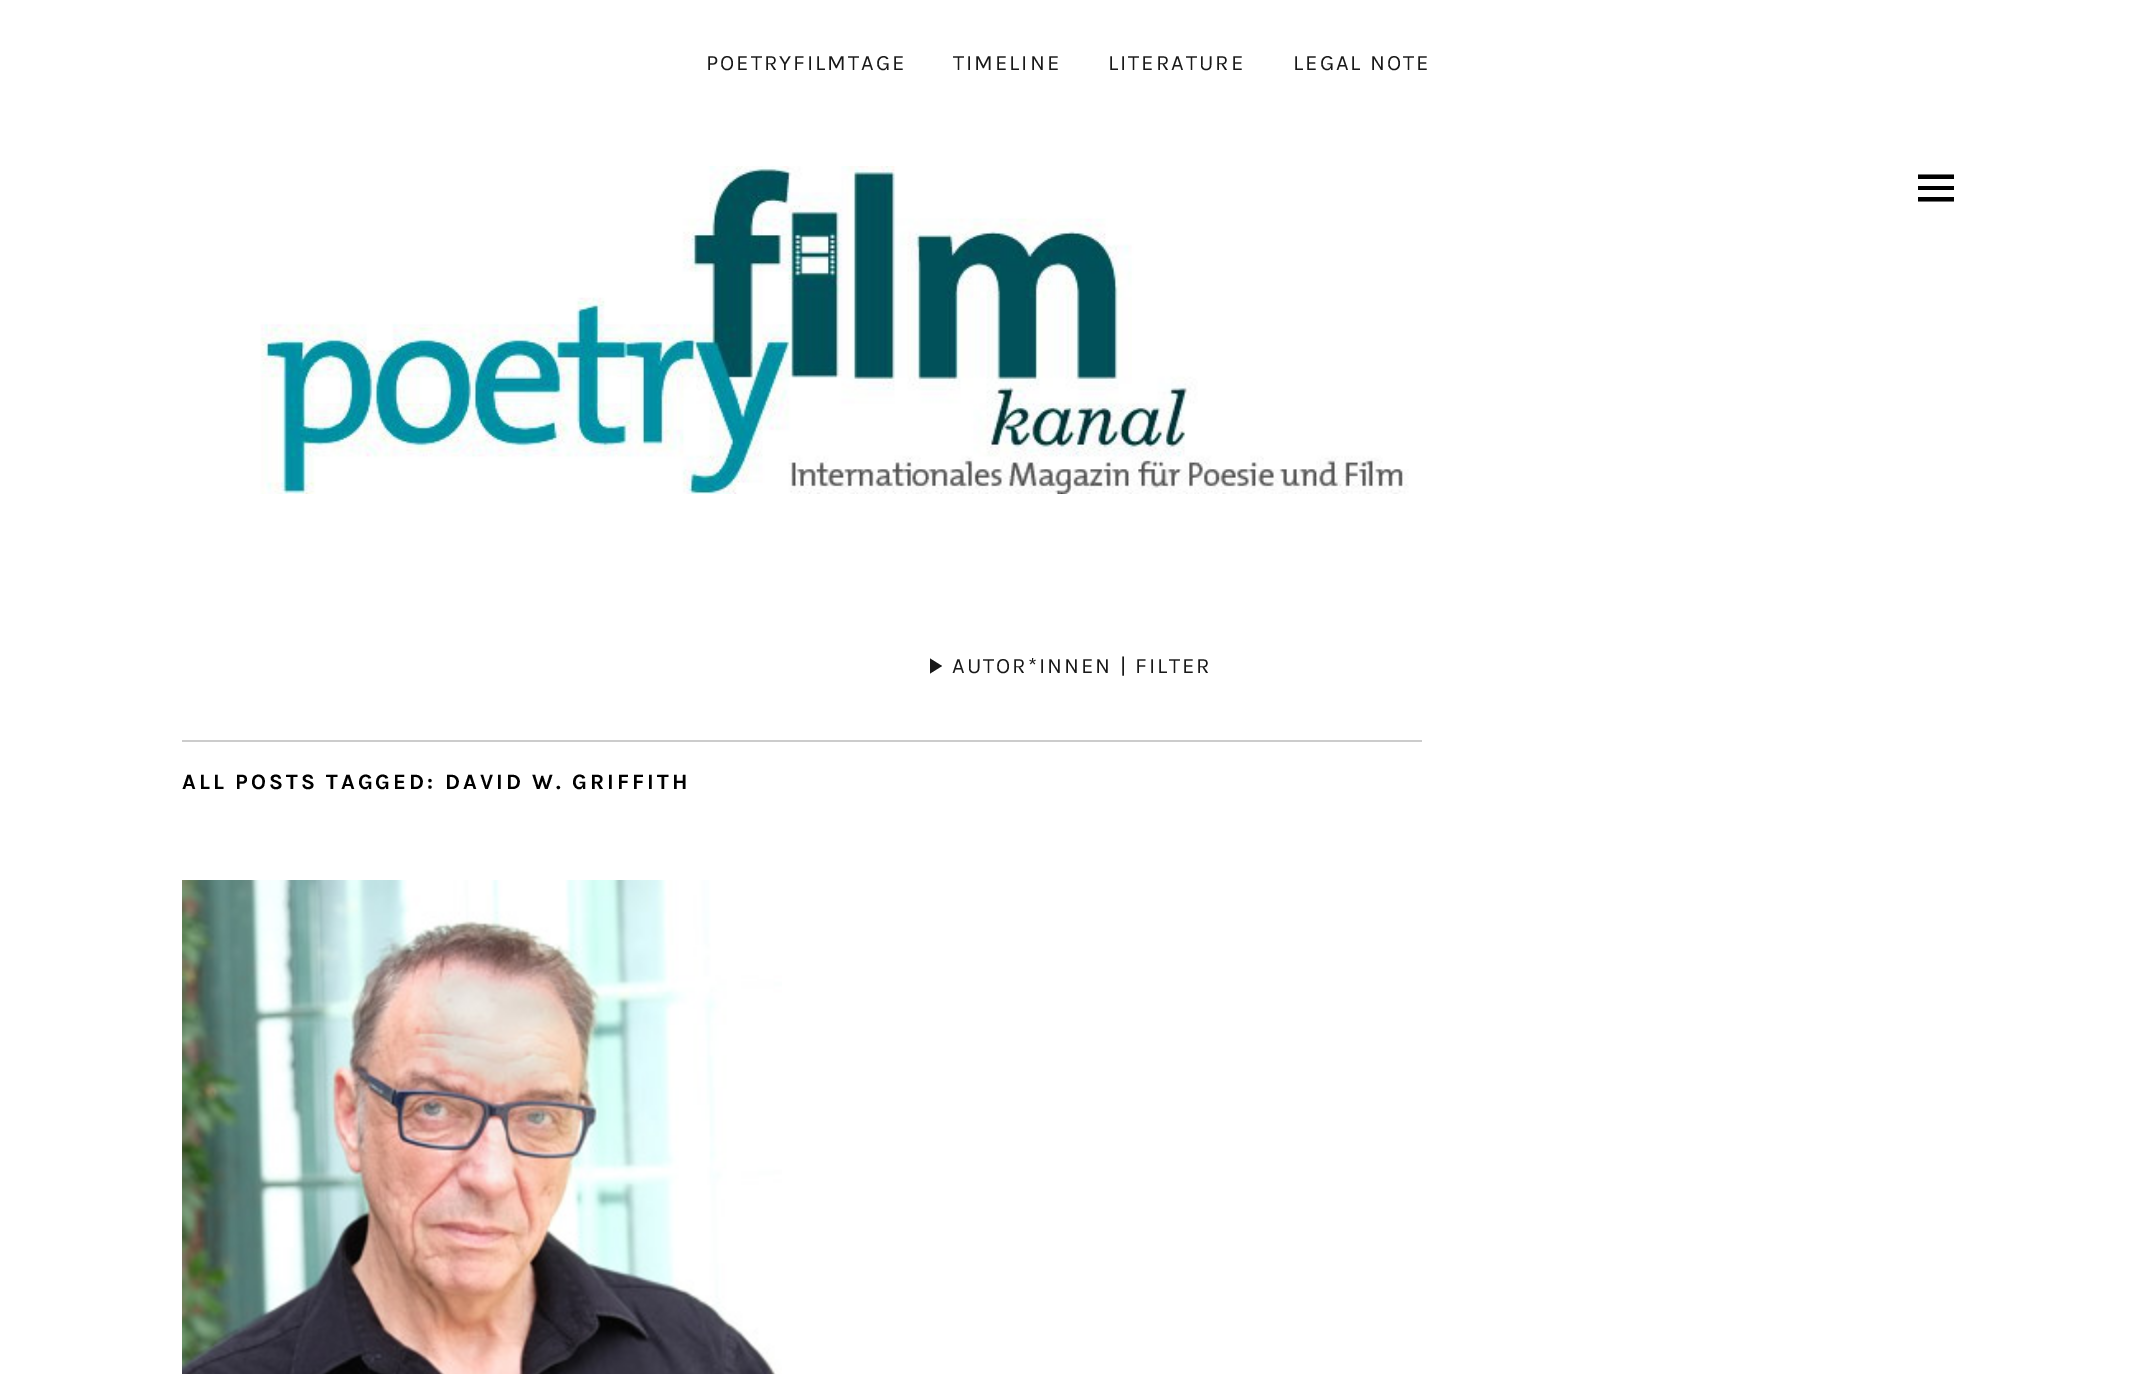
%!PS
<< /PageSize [2135 1374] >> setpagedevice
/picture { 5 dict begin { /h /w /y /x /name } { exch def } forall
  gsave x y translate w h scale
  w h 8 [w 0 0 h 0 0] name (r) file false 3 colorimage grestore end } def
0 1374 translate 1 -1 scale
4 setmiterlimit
1 setgray
0 0 2135 1374 rectfill
/Karla-Regular [22 0 0 -22 0 0] selectfont
0.098 setgray
706 70 moveto 2 0 (POETRYFILMTAGE) ashow
953 70 moveto 2 0 (TIMELINE) ashow
1108 70 moveto 2 0 (LITERATURE) ashow
1293 70 moveto 2 0 (LEGAL NOTE) ashow
(img1.rgb) 260 166 1149 328 picture
0 setgray
newpath 1918 201.5 moveto 1918 197 lineto 1954 197 lineto 1954 201.5 lineto closepath 1918 174.5 moveto 1954 174.5 lineto 1954 179 lineto 1918 179 lineto closepath 1918 190 moveto 1918 186 lineto 1954 186 lineto 1954 190 lineto closepath fill
0.098 setgray
newpath 930 658.5 moveto 942 666 lineto 930 673.5 lineto closepath fill
952 673 moveto 2 0 (AUTOR*INNEN | FILTER) ashow
0.8 setgray
182 740 1240 2 rectfill
/Karla-Bold [22 0 0 -22 0 0] selectfont
0 setgray
182 789 moveto 3 0 (ALL POSTS TAGGED: DAVID W. GRIFFITH) ashow
(img2.rgb) 182 880 600 494 picture
showpage
